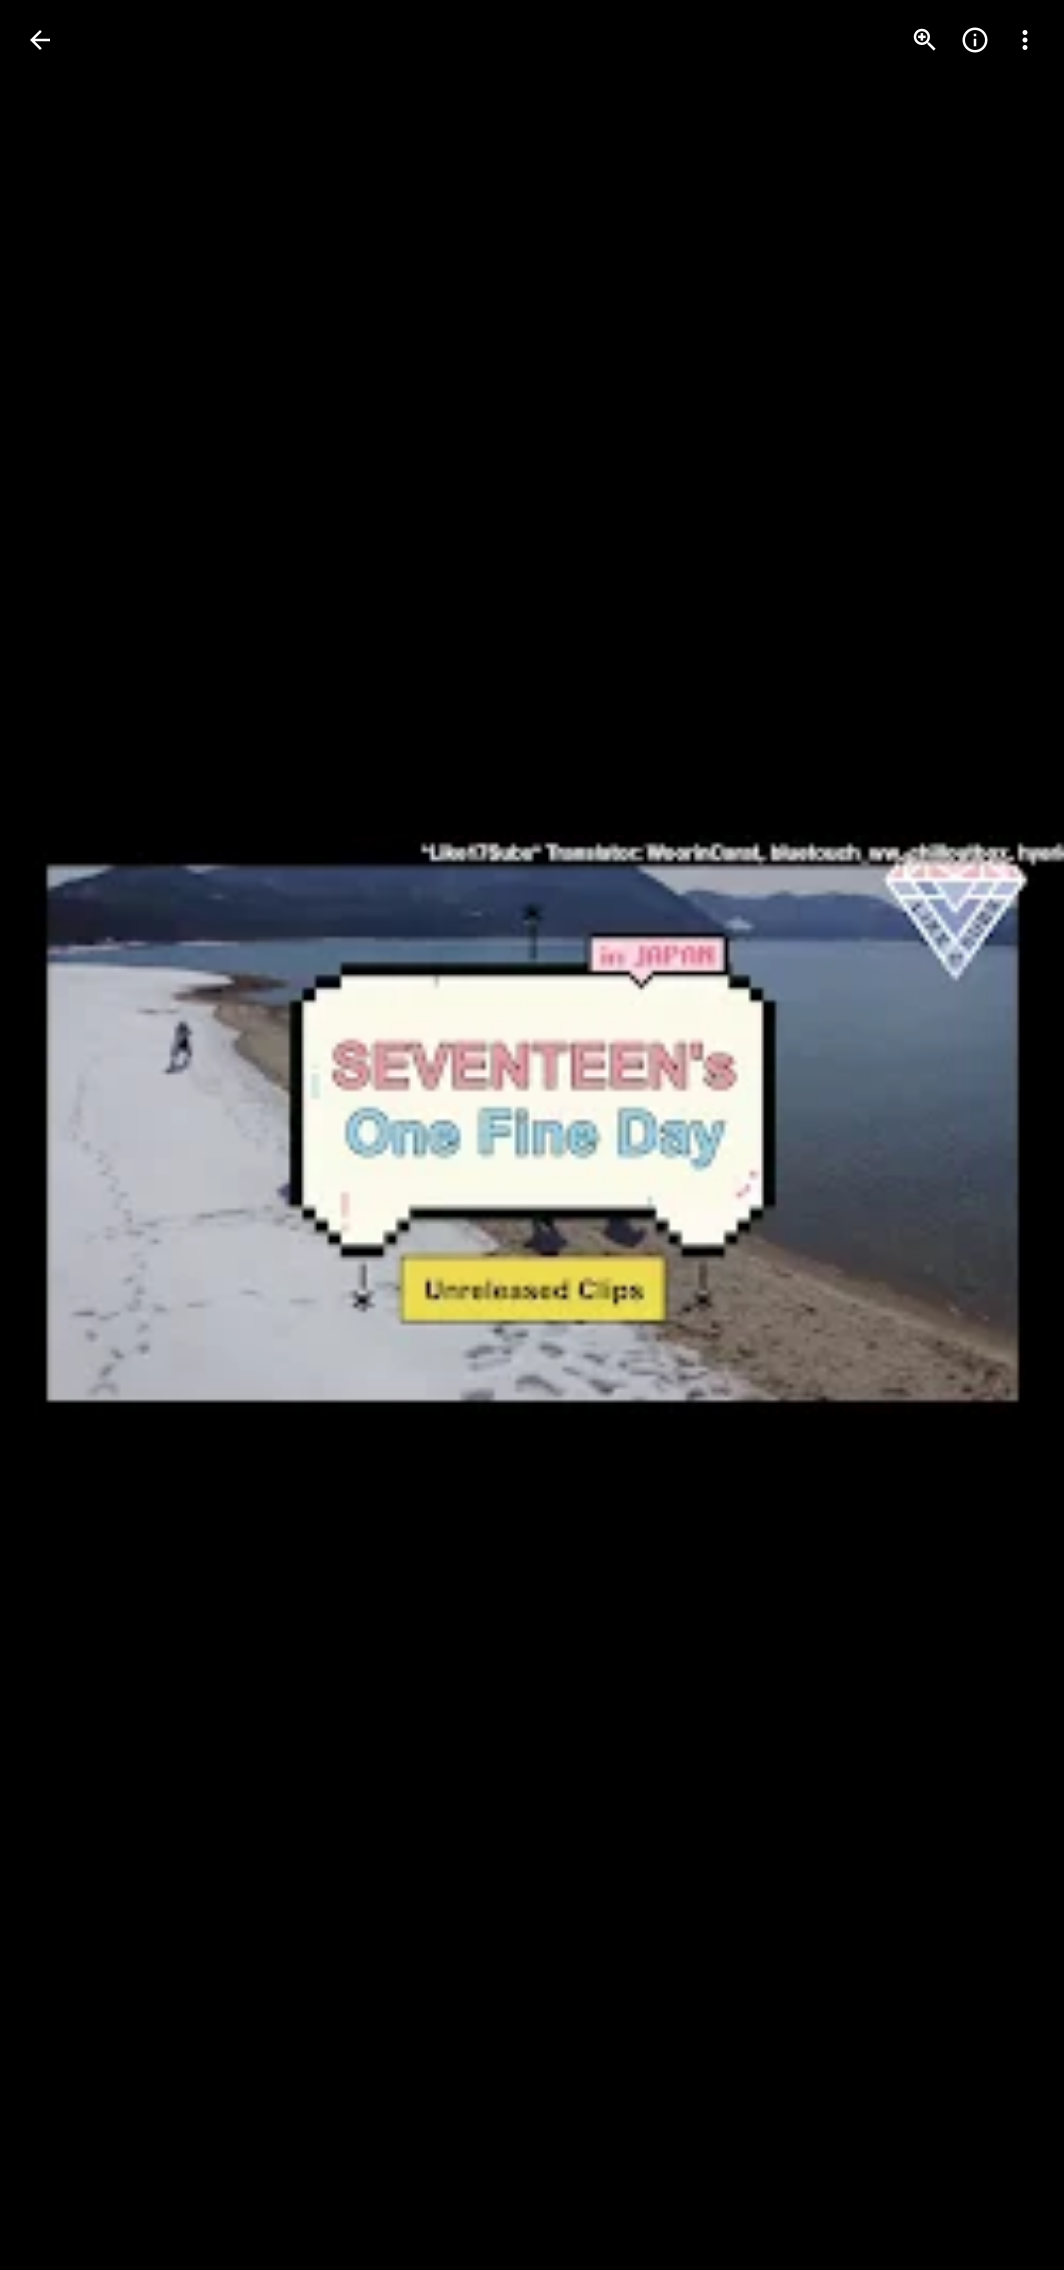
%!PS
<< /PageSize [1064 2270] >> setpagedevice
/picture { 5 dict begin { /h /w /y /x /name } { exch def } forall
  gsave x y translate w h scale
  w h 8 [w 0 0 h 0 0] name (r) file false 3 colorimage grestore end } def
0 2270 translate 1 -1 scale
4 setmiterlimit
0 setgray
0 0 1064 2270 rectfill
(img1.rgb) 30 30 20 20 picture
(img2.rgb) 913 28 23 23 picture
(img3.rgb) 962 27 26 26 picture
(img4.rgb) 1022 30 6 20 picture
(img5.rgb) 35 835 1029 579 picture
showpage
